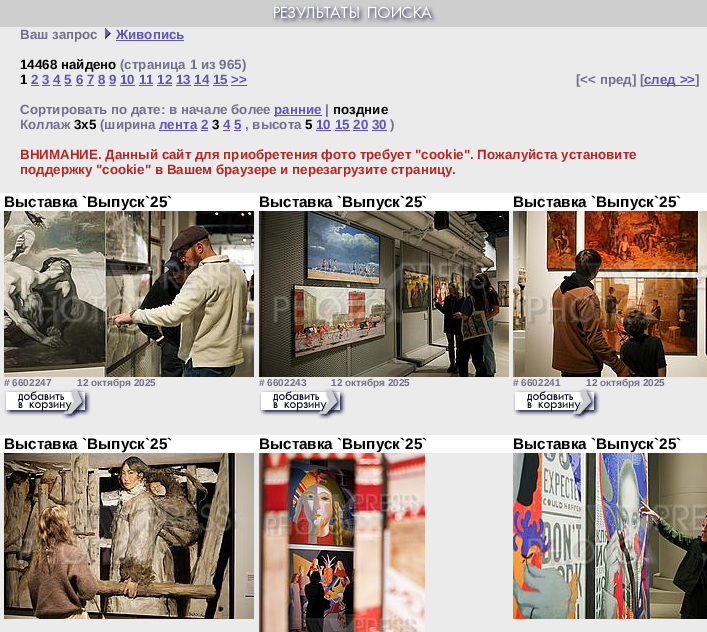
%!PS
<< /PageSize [707 632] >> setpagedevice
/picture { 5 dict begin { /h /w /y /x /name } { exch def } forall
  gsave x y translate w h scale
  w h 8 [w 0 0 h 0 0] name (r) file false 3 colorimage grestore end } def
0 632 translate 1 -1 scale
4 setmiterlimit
0.922 setgray
0 0 707 632 rectfill
0.808 setgray
0 0 707 27 rectfill
(img1.rgb) 272 5 165 19 picture
/LiberationSans-Bold [13.35 0 0 -13.35 0 0] selectfont
0.451 0.439 0.537 setrgbcolor
20 39 moveto (Ваш запрос) show
(img2.rgb) 105 28 6 11 picture
0.369 0.329 0.725 setrgbcolor
116 39 moveto (Живопись) show
116 40 68 1 rectfill
0 setgray
20 69 moveto (14468 найдено) show
0.451 0.439 0.537 setrgbcolor
120 69 moveto (\(страница 1 из 965\)) show
0 setgray
20 84 moveto (1) show
0.369 0.329 0.725 setrgbcolor
31 84 moveto (2 3 4 5 6 7 8 9 10 11 12 13 14 15 >>) show
31 85 8 1 rectfill
42 85 8 1 rectfill
53 85 8 1 rectfill
65 85 7 1 rectfill
76 85 7 1 rectfill
87 85 7 1 rectfill
98 85 7 1 rectfill
109 85 7 1 rectfill
120 85 15 1 rectfill
139 85 14 1 rectfill
157 85 15 1 rectfill
176 85 15 1 rectfill
194 85 15 1 rectfill
213 85 15 1 rectfill
231 85 16 1 rectfill
0.451 0.439 0.537 setrgbcolor
576 84 moveto ([<< пред] [) show
0.369 0.329 0.725 setrgbcolor
644 85 51 1 rectfill
644 84 moveto (след >>) show
0.451 0.439 0.537 setrgbcolor
695 84 moveto (]) show
20 114 moveto (Сортировать по дате: в начале более) show
0.369 0.329 0.725 setrgbcolor
274 115 48 1 rectfill
274 114 moveto (ранние) show
0.451 0.439 0.537 setrgbcolor
325 114 moveto (|) show
0 setgray
333 114 moveto (поздние) show
0.451 0.439 0.537 setrgbcolor
20 129 moveto (Коллаж) show
0 setgray
74 129 moveto (3x5) show
0.451 0.439 0.537 setrgbcolor
100 129 moveto (\(ширина) show
0.369 0.329 0.725 setrgbcolor
159 129 moveto (лента 2) show
159 130 38 1 rectfill
0 setgray
212 129 moveto (3) show
0.369 0.329 0.725 setrgbcolor
223 129 moveto (4 5) show
223 130 7 1 rectfill
0.451 0.439 0.537 setrgbcolor
245 129 moveto (, высота) show
0 setgray
305 129 moveto (5) show
0.369 0.329 0.725 setrgbcolor
316 129 moveto (10 15 20 30) show
316 130 15 1 rectfill
0.451 0.439 0.537 setrgbcolor
390 129 moveto (\)) show
0.369 0.329 0.725 setrgbcolor
201 130 7 1 rectfill
234 130 7 1 rectfill
335 130 15 1 rectfill
353 130 15 1 rectfill
372 130 15 1 rectfill
0.714 0.145 0.145 setrgbcolor
20 159 moveto (ВНИМАНИЕ. Данный сайт для приобретения фото требует "cookie". Пожалуйста установите) show
20 174 moveto (поддержку "cookie" в Вашем браузере и перезагрузите страницу.) show
1 setgray
0 193 707 18 rectfill
/LiberationSans-Bold [15.25 0 0 -15.25 0 0] selectfont
0 setgray
4 207 moveto (Выставка `Выпуск`25`) show
259 207 moveto (Выставка `Выпуск`25`) show
513 207 moveto (Выставка `Выпуск`25`) show
(img3.rgb) 4 211 250 166 picture
(img4.rgb) 259 211 250 166 picture
(img5.rgb) 513 211 194 166 picture
/LiberationSans-Bold [10 0 0 -10 0 0] selectfont
0.451 0.439 0.537 setrgbcolor
4 386 moveto (# 6602247) show
77 386 moveto (12 октября 2025) show
(img6.rgb) 4 388 87 31 picture
259 386 moveto (# 6602243) show
331 386 moveto (12 октября 2025) show
(img6.rgb) 259 388 87 31 picture
513 386 moveto (# 6602241) show
586 386 moveto (12 октября 2025) show
(img6.rgb) 513 388 87 31 picture
1 setgray
0 435 707 18 rectfill
/LiberationSans-Bold [15.25 0 0 -15.25 0 0] selectfont
0 setgray
4 449 moveto (Выставка `Выпуск`25`) show
259 449 moveto (Выставка `Выпуск`25`) show
513 449 moveto (Выставка `Выпуск`25`) show
(img7.rgb) 4 453 250 166 picture
(img8.rgb) 259 453 166 179 picture
(img9.rgb) 513 453 194 166 picture
showpage
